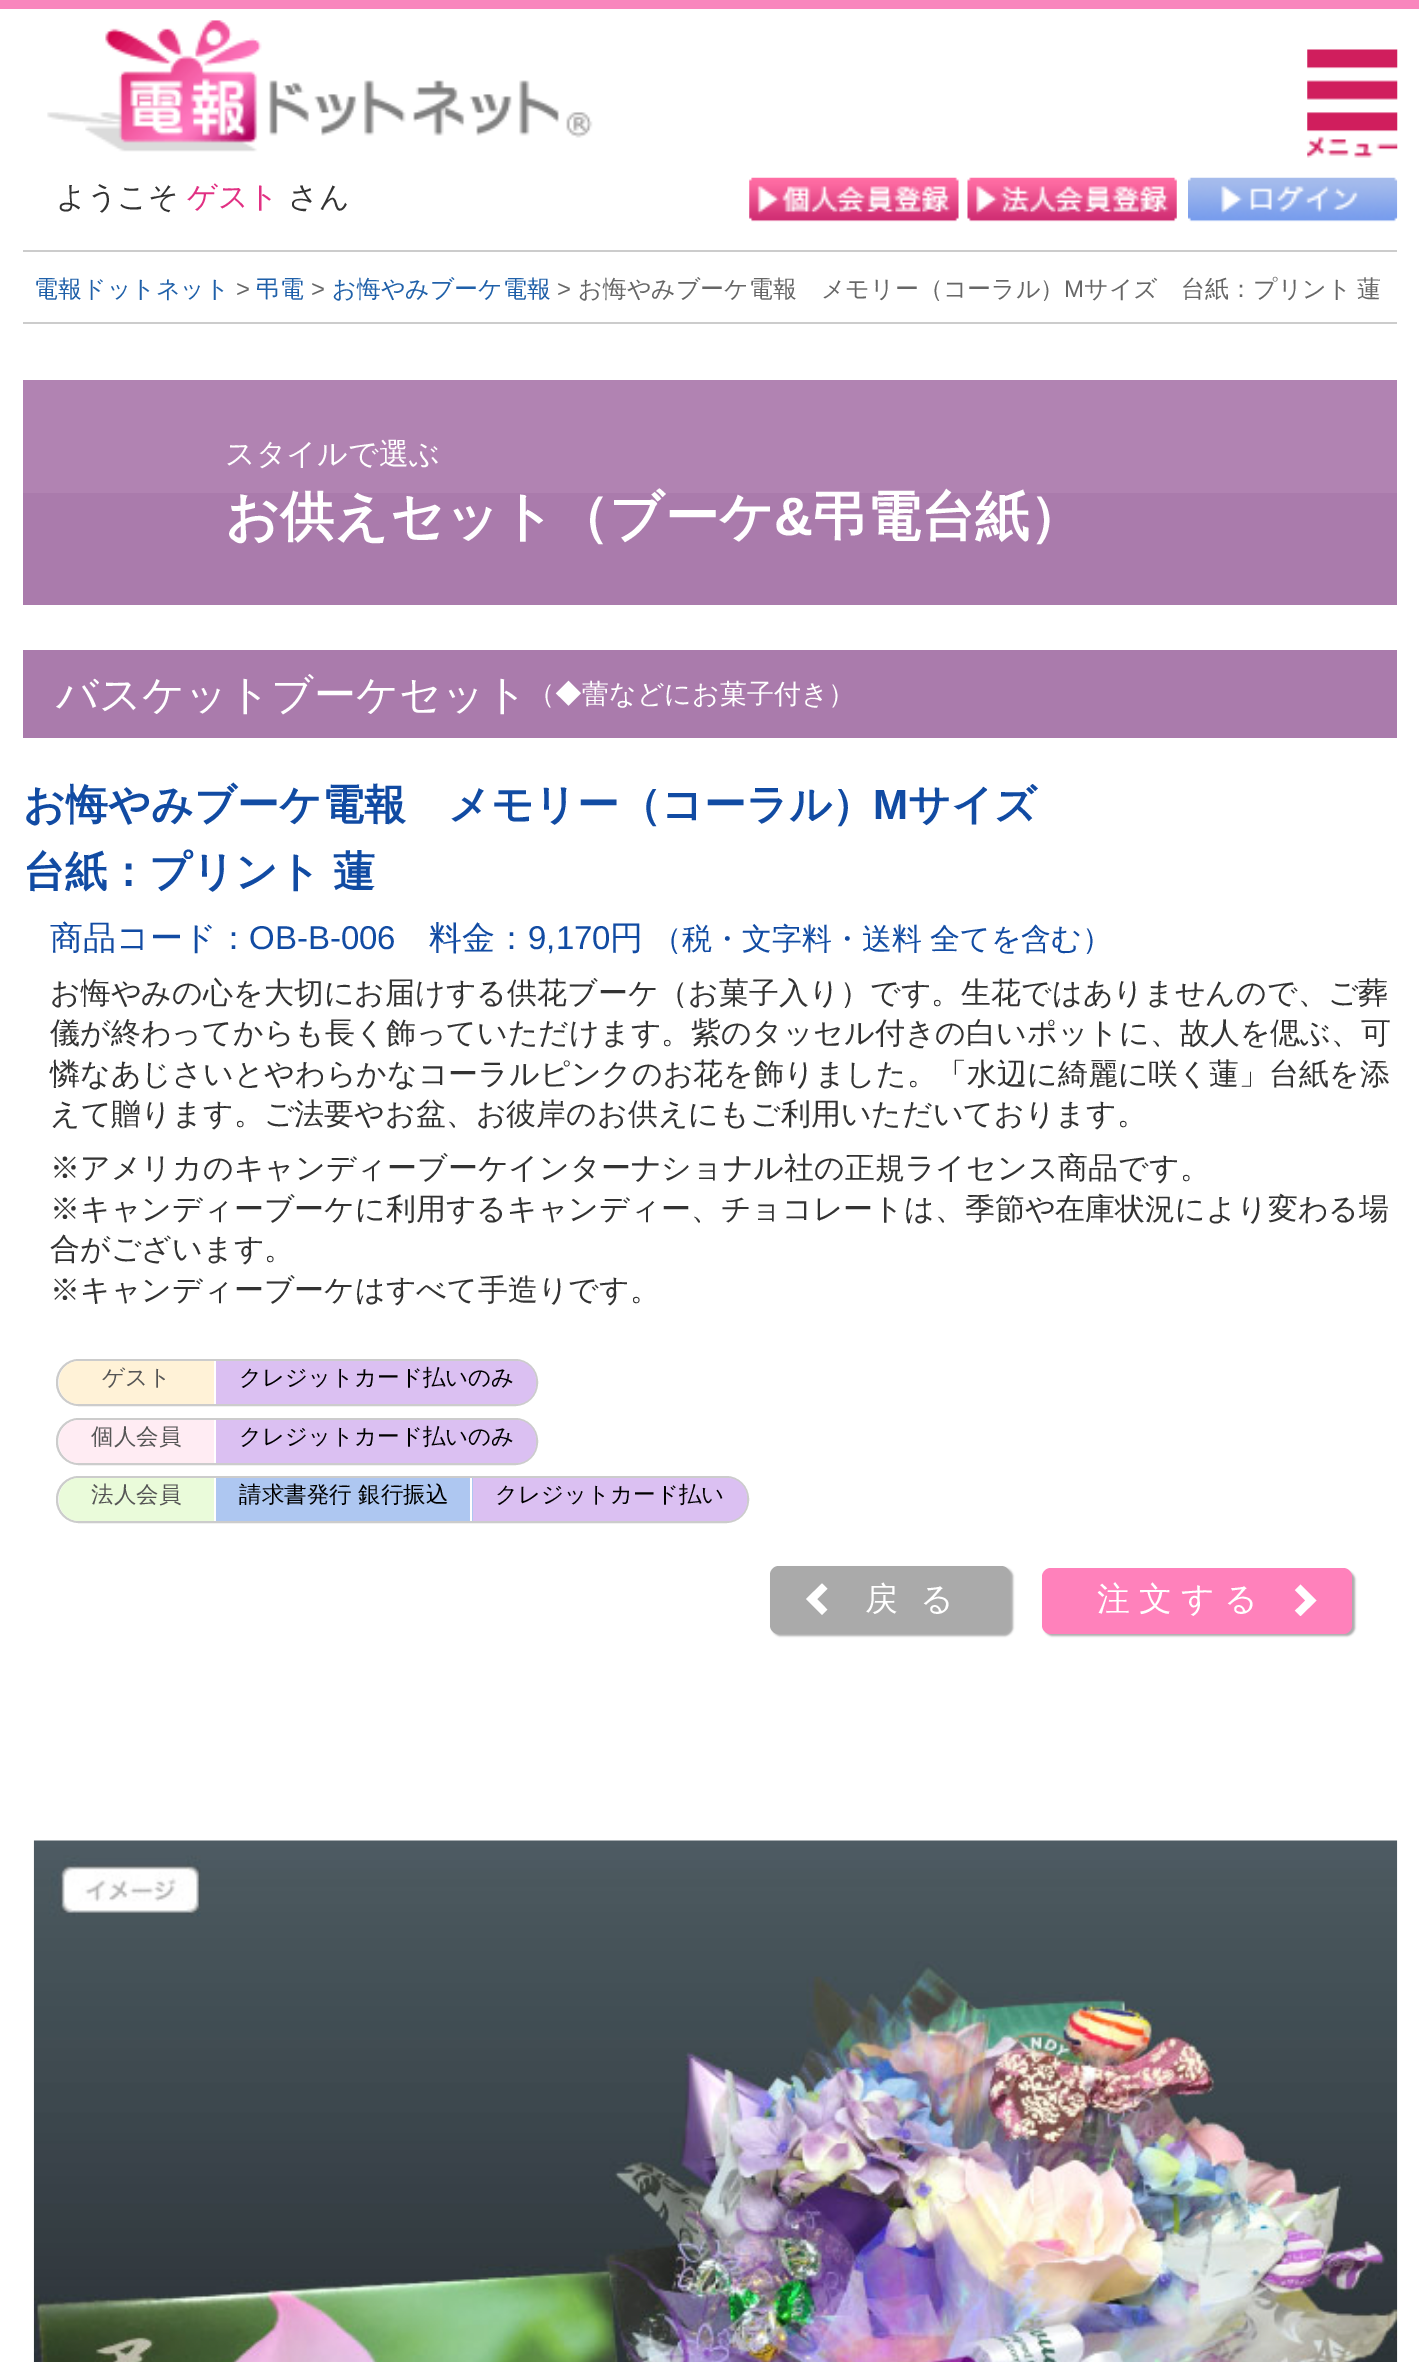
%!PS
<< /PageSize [1419 2362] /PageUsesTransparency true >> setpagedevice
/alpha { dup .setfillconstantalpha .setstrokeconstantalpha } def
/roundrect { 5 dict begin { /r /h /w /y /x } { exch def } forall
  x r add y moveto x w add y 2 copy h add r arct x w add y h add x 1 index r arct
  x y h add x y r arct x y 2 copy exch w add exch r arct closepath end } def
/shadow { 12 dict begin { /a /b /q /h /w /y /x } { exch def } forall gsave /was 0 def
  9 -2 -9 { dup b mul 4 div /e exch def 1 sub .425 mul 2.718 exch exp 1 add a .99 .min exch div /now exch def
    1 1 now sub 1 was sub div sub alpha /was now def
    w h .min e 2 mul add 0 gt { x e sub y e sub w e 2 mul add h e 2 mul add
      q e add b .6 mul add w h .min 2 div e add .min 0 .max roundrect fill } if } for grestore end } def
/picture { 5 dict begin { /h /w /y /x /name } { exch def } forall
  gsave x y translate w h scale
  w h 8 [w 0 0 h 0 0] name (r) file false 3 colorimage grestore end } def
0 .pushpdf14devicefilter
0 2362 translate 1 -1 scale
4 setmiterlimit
1 setgray
0 0 1419 2362 rectfill
0.976 0.525 0.741 setrgbcolor
0 0 1419 9 rectfill
(img1.rgb) 47 20 546 132 picture
(img2.rgb) 1307 49 91 109 picture
0.8 setgray
23 250 1374 2 rectfill
/WenQuanYiZenHei-Medium [30 0 0 -30 0 0] selectfont
0.2 setgray
56 207 moveto (ようこそ) show
0.882 0.188 0.514 setrgbcolor
187 207 moveto (ゲスト) show
0.2 setgray
288 207 moveto (さん) show
(img3.rgb) 749 177 210 45 picture
(img4.rgb) 967 177 210 45 picture
(img5.rgb) 1188 177 210 45 picture
0.8 setgray
23 322 1374 2 rectfill
/WenQuanYiZenHei-Medium [24 0 0 -24 0 0] selectfont
0.122 0.376 0.663 setrgbcolor
34 297 moveto (電報ドットネット) show
/LiberationSans-Regular [24 0 0 -24 0 0] selectfont
0.4 setgray
236 297 moveto (>) show
/WenQuanYiZenHei-Medium [24 0 0 -24 0 0] selectfont
0.122 0.376 0.663 setrgbcolor
256 297 moveto (弔電) show
/LiberationSans-Regular [24 0 0 -24 0 0] selectfont
0.4 setgray
311 297 moveto (>) show
/WenQuanYiZenHei-Medium [24 0 0 -24 0 0] selectfont
0.122 0.376 0.663 setrgbcolor
332 297 moveto (お悔やみブーケ電報) show
/LiberationSans-Regular [24 0 0 -24 0 0] selectfont
0.4 setgray
557 297 moveto (>) show
/WenQuanYiZenHei-Medium [24 0 0 -24 0 0] selectfont
578 297 moveto (お悔やみブーケ電報　メモリー（コーラル）) show
/LiberationSans-Regular [24 0 0 -24 0 0] selectfont
1064 297 moveto (M) show
/WenQuanYiZenHei-Medium [24 0 0 -24 0 0] selectfont
1084 297 moveto (サイズ) show
1181 297 moveto -1 0 32 (台紙：プリント 蓮) widthshow
0.694 0.514 0.698 setrgbcolor
23 380 1374 113 rectfill
0.667 0.482 0.675 setrgbcolor
23 493 1374 112 rectfill
/WenQuanYiZenHei-Medium [30 0 0 -30 0 0] selectfont
1 setgray
225 464 moveto (スタイルで選ぶ) show
/WenQuanYiZenHei-Bold [54 0 0 -54 0 0] selectfont
225 535 moveto (お供えセット（ブーケ) show
/LiberationSans-Bold [54 0 0 -54 0 0] selectfont
774 535 moveto (&) show
/WenQuanYiZenHei-Bold [54 0 0 -54 0 0] selectfont
813 535 moveto (弔電台紙）) show
0.667 0.482 0.675 setrgbcolor
23 650 1374 88 rectfill
/WenQuanYiZenHei-Medium [42 0 0 -42 0 0] selectfont
1 setgray
56 709 moveto (バスケットブーケセット) show
/WenQuanYiZenHei-Medium [27 0 0 -27 0 0] selectfont
528 703 moveto (（◆蕾などにお菓子付き）) show
/WenQuanYiZenHei-Bold [42 0 0 -42 0 0] selectfont
0.067 0.294 0.639 setrgbcolor
23 819 moveto (お悔やみブーケ電報　メモリー（コーラル）) show
/LiberationSans-Bold [42 0 0 -42 0 0] selectfont
873 819 moveto (M) show
/WenQuanYiZenHei-Bold [42 0 0 -42 0 0] selectfont
908 819 moveto (サイズ) show
23 886 moveto -1 0 32 (台紙：プリント 蓮) widthshow
/WenQuanYiZenHei-Medium [33 0 0 -33 0 0] selectfont
50 949 moveto (商品コード：) show
/LiberationSans-Regular [33 0 0 -33 0 0] selectfont
249 949 moveto (OB-B-006) show
/WenQuanYiZenHei-Medium [33 0 0 -33 0 0] selectfont
429 949 moveto (料金：) show
/LiberationSans-Regular [33 0 0 -33 0 0] selectfont
528 949 moveto (9,170) show
/WenQuanYiZenHei-Medium [33 0 0 -33 0 0] selectfont
610 949 moveto (円) show
/WenQuanYiZenHei-Medium [30 0 0 -30 0 0] selectfont
652 949 moveto -1 0 32 (（税・文字料・送料 全てを含む）) widthshow
0.2 setgray
50 1003 moveto (お悔やみの心を大切にお届けする供花ブーケ（お菓子入り）です。生花ではありませんので、ご葬) show
50 1043 moveto (儀が終わってからも長く飾っていただけます。紫のタッセル付きの白いポットに、故人を偲ぶ、可) show
50 1084 moveto (憐なあじさいとやわらかなコーラルピンクのお花を飾りました。「水辺に綺麗に咲く蓮」台紙を添) show
50 1124 moveto (えて贈ります。ご法要やお盆、お彼岸のお供えにもご利用いただいております。) show
50 1178 moveto (※アメリカのキャンディーブーケインターナショナル社の正規ライセンス商品です。) show
50 1219 moveto (※キャンディーブーケに利用するキャンディー、チョコレートは、季節や在庫状況により変わる場) show
50 1259 moveto (合がございます。) show
50 1300 moveto (※キャンディーブーケはすべて手造りです。) show
0.8 setgray
2 setlinewidth
57 1360 480 45 22 roundrect stroke
1 0.949 0.843 setrgbcolor
newpath 79 1361 moveto 216 1361 lineto 216 1404 lineto 79 1404 lineto 68 1404 59 1395 59 1384 curveto 59 1381 lineto 59 1370 68 1361 79 1361 curveto closepath fill
1 setgray
214 1361 2 43 rectfill
/WenQuanYiZenHei-Medium [22.5 0 0 -22.5 0 0] selectfont
0.333 setgray
102 1385 moveto (ゲスト) show
0.859 0.753 0.949 setrgbcolor
newpath 216 1361 moveto 516 1361 lineto 527 1361 536 1370 536 1381 curveto 536 1384 lineto 536 1395 527 1404 516 1404 curveto 216 1404 lineto closepath fill
0 setgray
239 1385 moveto (クレジットカード払いのみ) show
0.8 setgray
57 1419 480 45 22 roundrect stroke
1 0.925 0.953 setrgbcolor
newpath 79 1420 moveto 216 1420 lineto 216 1463 lineto 79 1463 lineto 68 1463 59 1454 59 1443 curveto 59 1440 lineto 59 1429 68 1420 79 1420 curveto closepath fill
1 setgray
214 1420 2 43 rectfill
0.333 setgray
91 1444 moveto (個人会員) show
0.859 0.753 0.949 setrgbcolor
newpath 216 1420 moveto 516 1420 lineto 527 1420 536 1429 536 1440 curveto 536 1443 lineto 536 1454 527 1463 516 1463 curveto 216 1463 lineto closepath fill
0 setgray
239 1444 moveto (クレジットカード払いのみ) show
0.8 setgray
57 1477 691 45 22 roundrect stroke
0.918 0.984 0.855 setrgbcolor
newpath 79 1478 moveto 216 1478 lineto 216 1521 lineto 79 1521 lineto 68 1521 59 1512 59 1501 curveto 59 1498 lineto 59 1487 68 1478 79 1478 curveto closepath fill
1 setgray
214 1478 2 43 rectfill
0.333 setgray
91 1502 moveto (法人会員) show
0.682 0.78 0.945 setrgbcolor
216 1478 257 43 rectfill
1 setgray
470 1478 2 43 rectfill
0 setgray
239 1502 moveto (請求書発行 銀行振込) show
0.859 0.753 0.949 setrgbcolor
newpath 473 1478 moveto 727 1478 lineto 738 1478 747 1487 747 1498 curveto 747 1501 lineto 747 1512 738 1521 727 1521 curveto 473 1521 lineto closepath fill
0 setgray
495 1502 moveto (クレジットカード払い) show
0.667 setgray
772 1568 241 68 9 1 1 shadow
770 1566 240 68 9 roundrect fill
1 setgray
newpath 822 1583.5 moveto 838 1599 lineto 822 1615 lineto 806 1599 lineto closepath fill
/WenQuanYiZenHei-Medium [33 0 0 -33 0 0] selectfont
865 1610 moveto 22 0 (戻る) ashow
0.667 setgray
newpath 833 1583.5 moveto 849 1599 lineto 833 1615 lineto 817.5 1599 lineto closepath fill
1044 1571 311 65 9 1 1 shadow
1 0.506 0.733 setrgbcolor
1042 1568 310 66 9 roundrect fill
1 setgray
1097 1610 moveto 9 0 (注文する) ashow
newpath 1300.5 1584.5 moveto 1316.5 1600.5 lineto 1300.5 1616 lineto 1284.5 1600.5 lineto closepath fill
1 0.506 0.733 setrgbcolor
newpath 1289 1584.5 moveto 1305 1600.5 lineto 1289 1616 lineto 1273.5 1600.5 lineto closepath fill
(img6.rgb) 33 1840 1365 522 picture
.poppdf14devicefilter showpage
